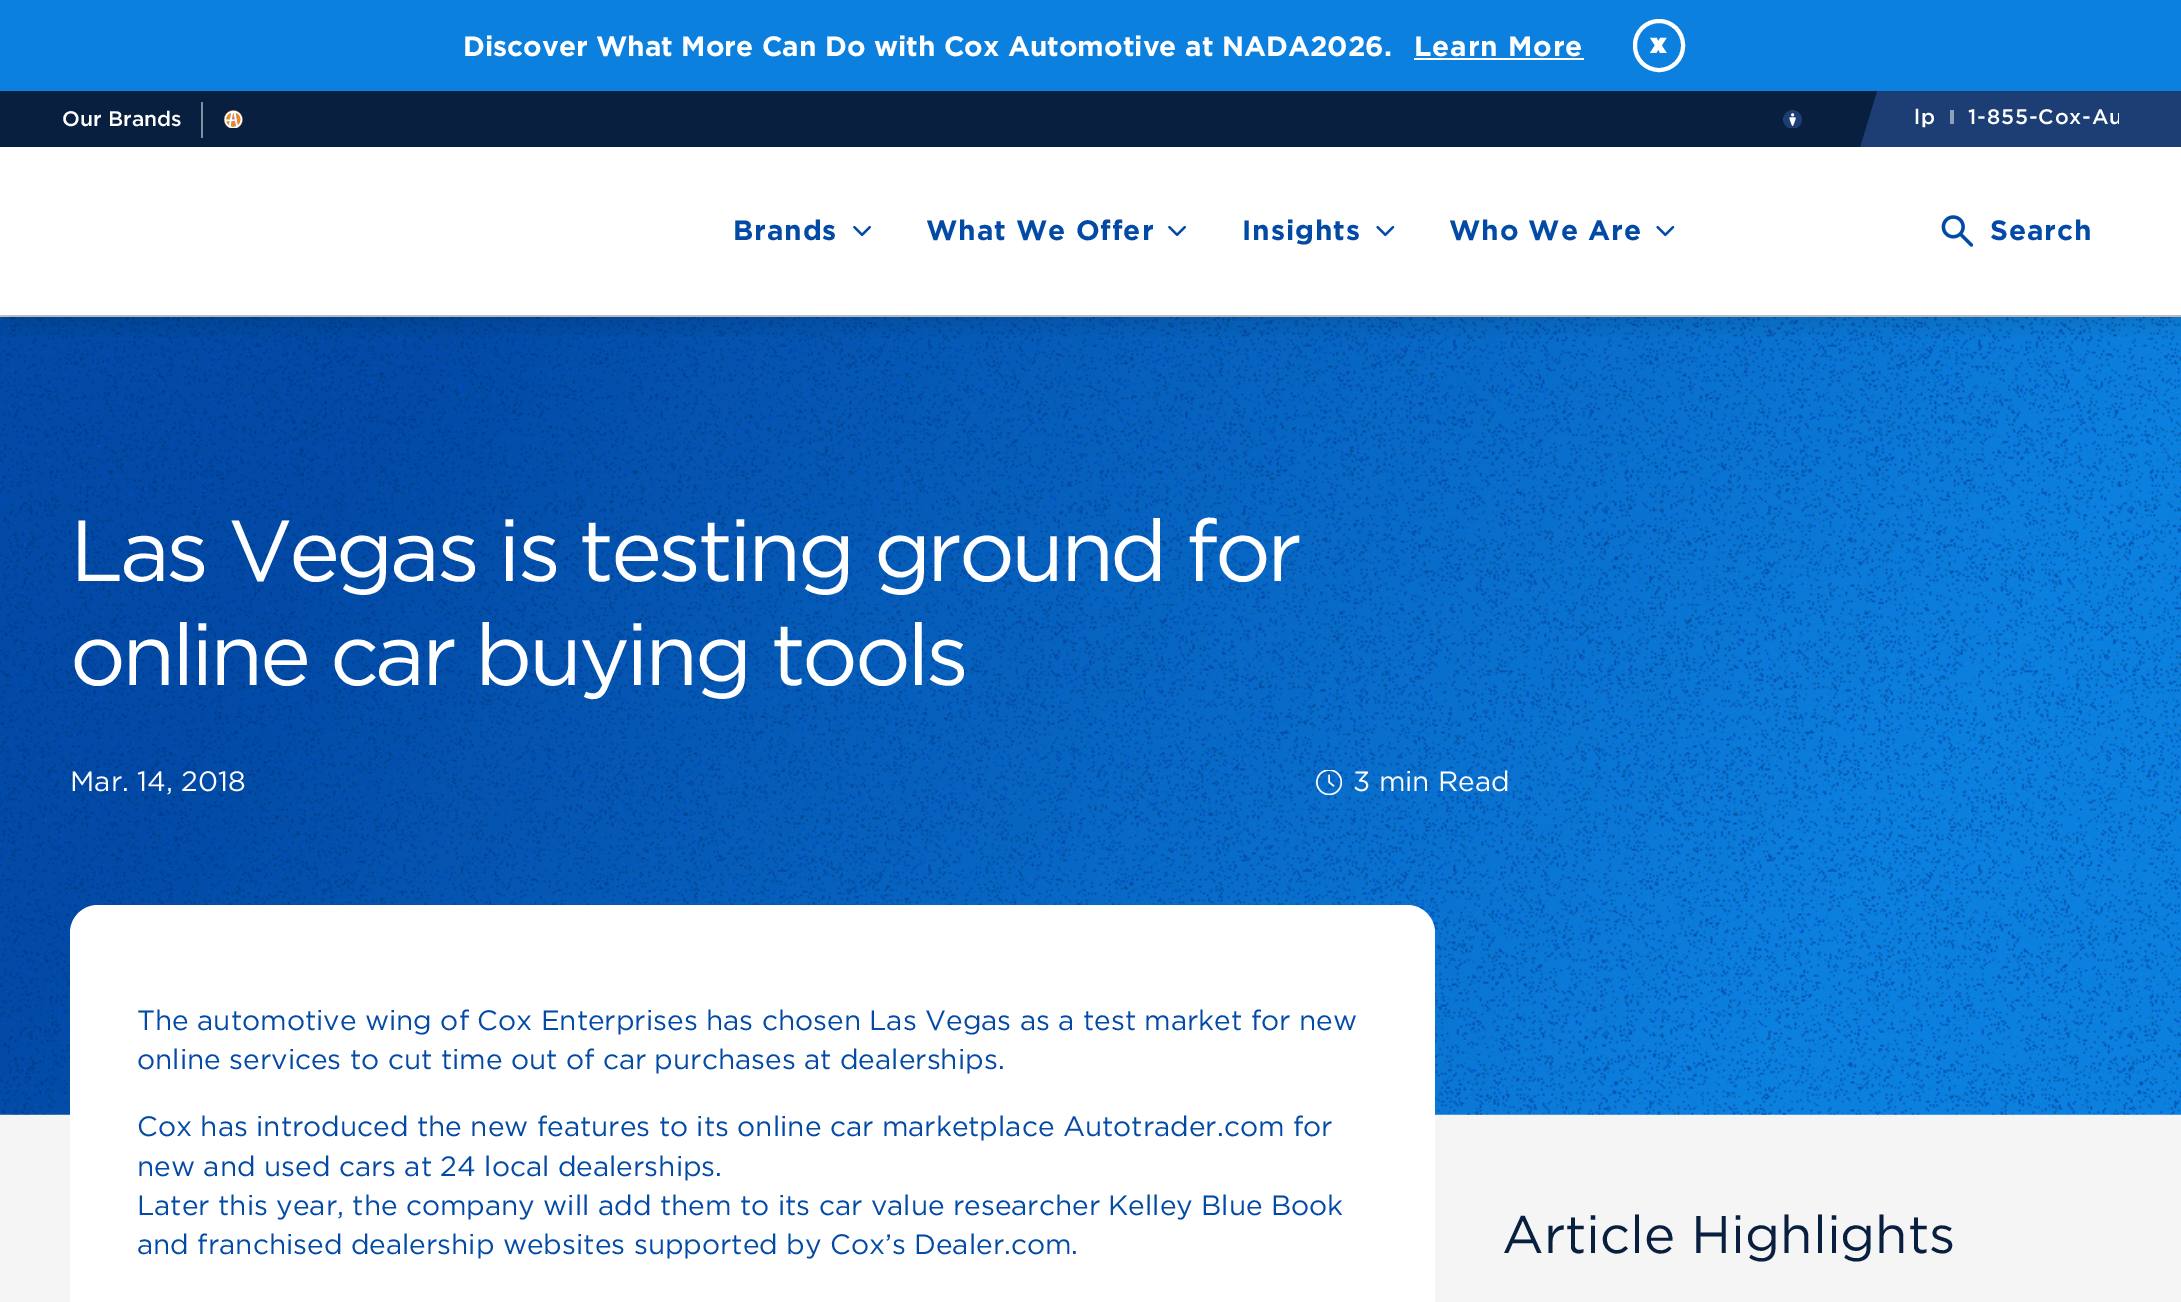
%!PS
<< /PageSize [2181 1302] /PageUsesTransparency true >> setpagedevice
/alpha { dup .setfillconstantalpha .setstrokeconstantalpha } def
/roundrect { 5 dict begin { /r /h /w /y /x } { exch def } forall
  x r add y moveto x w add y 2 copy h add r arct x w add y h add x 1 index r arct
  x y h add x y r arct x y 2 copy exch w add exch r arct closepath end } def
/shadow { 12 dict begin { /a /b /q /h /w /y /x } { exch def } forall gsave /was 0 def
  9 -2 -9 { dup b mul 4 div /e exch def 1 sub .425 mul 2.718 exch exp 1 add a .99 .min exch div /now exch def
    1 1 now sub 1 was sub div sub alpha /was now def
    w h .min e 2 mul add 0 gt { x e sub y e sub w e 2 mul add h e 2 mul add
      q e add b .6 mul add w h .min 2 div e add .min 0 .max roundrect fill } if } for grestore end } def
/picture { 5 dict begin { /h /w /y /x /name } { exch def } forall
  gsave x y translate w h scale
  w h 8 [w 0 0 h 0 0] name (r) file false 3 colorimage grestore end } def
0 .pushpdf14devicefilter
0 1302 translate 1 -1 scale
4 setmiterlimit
0.961 setgray
0 0 2181 1302 rectfill
0.047 0.502 0.875 setrgbcolor
0 0 2181 91 rectfill
/Gotham-Bold [28 0 0 -28 0 0] selectfont
1 setgray
463 56 moveto (Discover What More Can Do with Cox Automotive at NADA2026.) show
1414 56 moveto 0.9 0 (Learn More) ashow
1414 58 170 2 rectfill
4 setlinewidth
1635 21 48 49 24 roundrect stroke
/Gotham-Black [28 0 0 -28 0 0] selectfont
1650 53 moveto 0.9 0 (x) ashow
0 147 2181 168 rectfill
0.8 0.8 0.808 setrgbcolor
0 315 2181 2 rectfill
(img6.rgb) 0 317 2181 798 picture
gsave
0 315 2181 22 rectclip
0 setgray
5 152 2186 172 0 13 0.12 shadow
grestore
0.114 0.243 0.455 setrgbcolor
1860 91 321 56 rectfill
0.035 0.122 0.251 setrgbcolor
0 91 224 56 rectfill
/Gotham-Medium [21 0 0 -21 0 0] selectfont
1 setgray
1914 124 moveto 0.9 0 (lp) ashow
0.557 0.624 0.729 setrgbcolor
1950 110 4 14 rectfill
gsave
1911 91 208 56 rectclip
1 setgray
1968 124 moveto 0.9 0 (1-855-Cox-Au) ashow
grestore
1 setgray
62 126 moveto (Our Brands) show
0.518 0.561 0.627 setrgbcolor
201 102 2 36 rectfill
0.035 0.122 0.251 setrgbcolor
newpath 224 91 moveto 224 147 lineto 1860 147 lineto 1877 91 lineto closepath fill
(img1.rgb) 224 110 19 18 picture
(img2.rgb) 1783 110 19 18 picture
/Gotham-Bold [28 0 0 -28 0 0] selectfont
0.008 0.29 0.647 setrgbcolor
733 240 moveto 0.9 0 (Brands) ashow
(img3.rgb) 853 226 18 11 picture
926 240 moveto 0.9 0 (What We Offer) ashow
(img3.rgb) 1168 226 18 11 picture
1242 240 moveto 0.9 0 (Insights) ashow
(img4.rgb) 1376 226 19 11 picture
1449 240 moveto 0.9 0 (Who We Are) ashow
(img4.rgb) 1656 226 19 11 picture
(img5.rgb) 1941 215 33 32 picture
1990 240 moveto 0.9 0 (Search) ashow
/Gotham-Regular [86.5 0 0 -86.5 0 0] selectfont
1 setgray
70 581 moveto -3.65 0 (Las Vegas is testing ground for) ashow
70 685 moveto -3.65 0 (online car buying tools) ashow
/Gotham-Regular [28 0 0 -28 0 0] selectfont
70 791 moveto (Mar. 14, 2018) show
(img7.rgb) 1316 770 26 25 picture
1353 791 moveto (3 min Read) show
70 905 1365 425 28 roundrect fill
0.008 0.29 0.647 setrgbcolor
137 1030 moveto (The automotive wing of Cox Enterprises has chosen Las Vegas as a test market for new) show
137 1069 moveto (online services to cut time out of car purchases at dealerships.) show
137 1136 moveto (Cox has introduced the new features to its online car marketplace Autotrader.com for) show
137 1176 moveto (new and used cars at 24 local dealerships.) show
137 1215 moveto (Later this year, the company will add them to its car value researcher Kelley Blue Book) show
137 1254 moveto (and franchised dealership websites supported by Cox’s Dealer.com.) show
/Gotham-Regular [52.75 0 0 -52.75 0 0] selectfont
0.035 0.122 0.251 setrgbcolor
1502 1253 moveto (Article Highlights) show
.poppdf14devicefilter showpage
